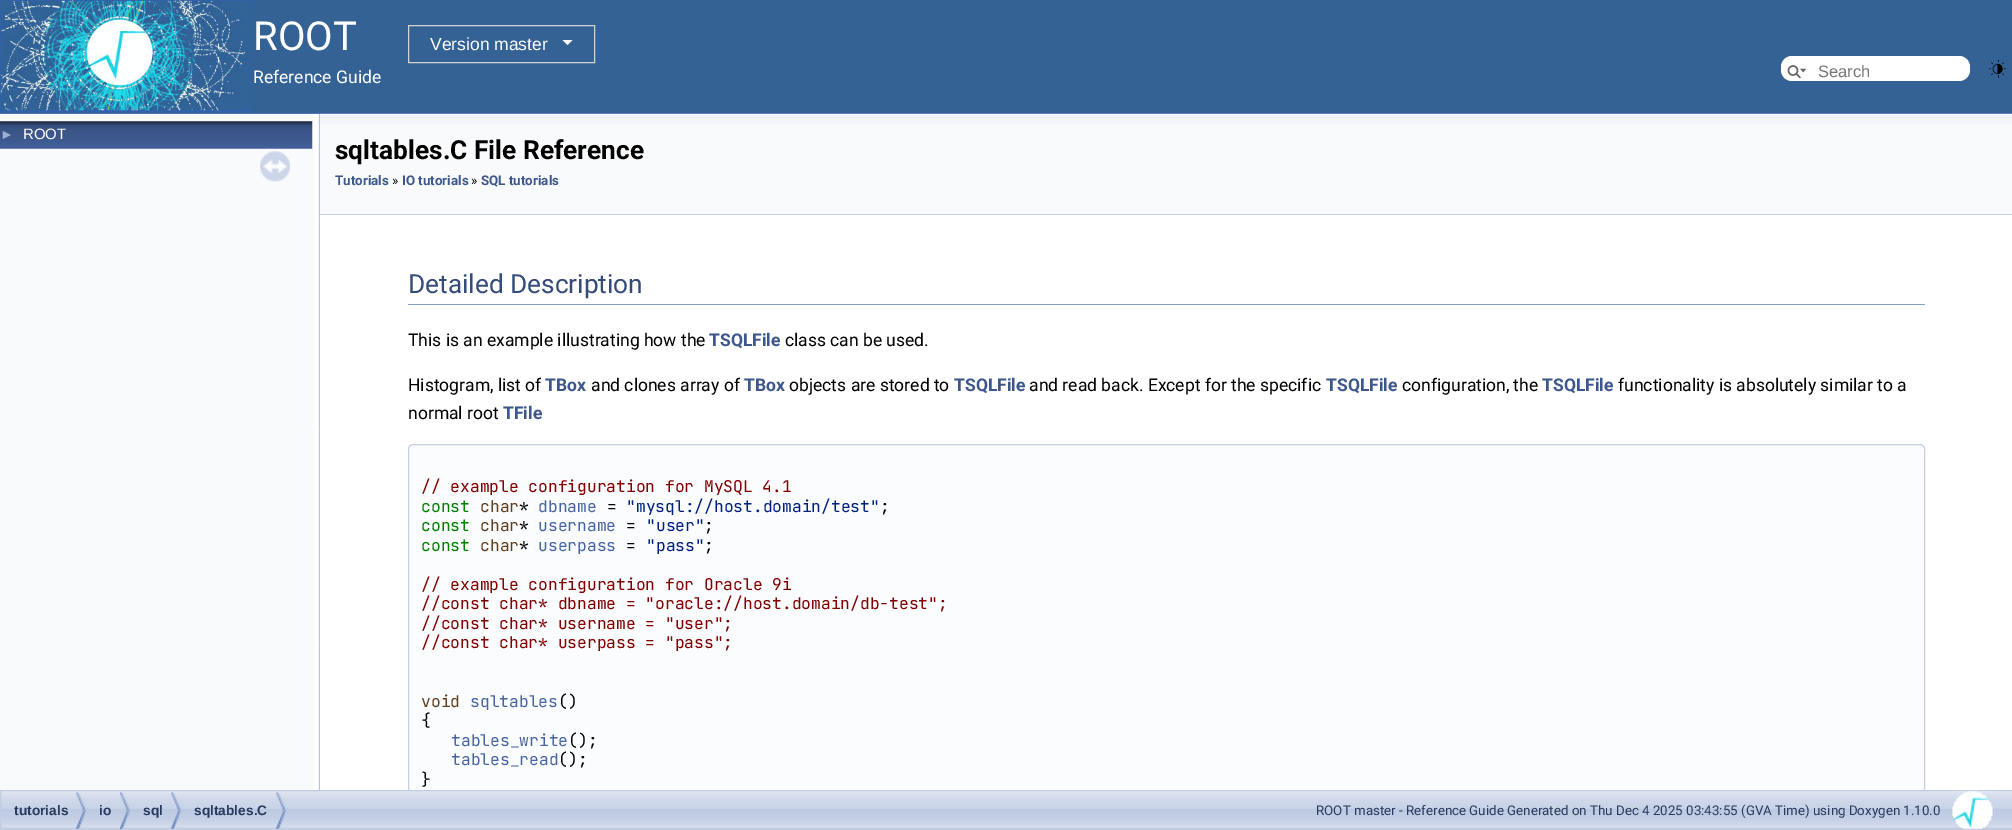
%!PS
<< /PageSize [2012 830] >> setpagedevice
/roundrect { 5 dict begin { /r /h /w /y /x } { exch def } forall
  x r add y moveto x w add y 2 copy h add r arct x w add y h add x 1 index r arct
  x y h add x y r arct x y 2 copy exch w add exch r arct closepath end } def
/picture { 5 dict begin { /h /w /y /x /name } { exch def } forall
  gsave x y translate w h scale
  w h 8 [w 0 0 h 0 0] name (r) file false 3 colorimage grestore end } def
0 830 translate 1 -1 scale
4 setmiterlimit
1 setgray
0 0 2012 830 rectfill
0.325 0.451 0.706 setrgbcolor
0 113 2012 1 rectfill
0.204 0.384 0.584 setrgbcolor
0 0 2012 113 rectfill
(img1.rgb) 0 0 254 113 picture
/Roboto-Regular [40 0 0 -40 0 0] selectfont
1 setgray
253 50 moveto (ROOT) show
0.827 setgray
408.5 25.5 186 37 rectstroke
/LiberationSans-Regular [17.5 0 0 -17.5 0 0] selectfont
1 setgray
430 50 moveto (Version master) show
newpath 562.5 40 moveto 572.5 40 lineto 567.5 45 lineto closepath fill
/Roboto-Regular [17.5 0 0 -17.5 0 0] selectfont
253 83 moveto (Reference Guide) show
1781 56 189 25 11 roundrect fill
(img2.rgb) 1787 65 20 14 picture
/LiberationSans-Regular [16.5 0 0 -16.5 0 0] selectfont
0.459 setgray
1818 77 moveto (Search) show
(img3.rgb) 1989 60 17 18 picture
0.976 0.98 0.988 setrgbcolor
0 114 313 676 rectfill
(img4.rgb) 0 121 313 28 picture
/LiberationSans-Regular [14 0 0 -14 0 0] selectfont
0.612 0.686 0.831 setrgbcolor
0 139 moveto (►) show
/LiberationSans-Regular [15 0 0 -15 0 0] selectfont
1 setgray
23 139 moveto (ROOT) show
(img5.rgb) 260 151 30 31 picture
(img6.rgb) 318 113 2 677 picture
0.976 0.98 0.988 setrgbcolor
320 124 1692 90 rectfill
(img7.rgb) 320 113 1692 11 picture
0.769 0.812 0.898 setrgbcolor
320 214 1692 1 rectfill
/Roboto-Bold [26.25 0 0 -26.25 0 0] selectfont
0 setgray
335 159 moveto (sqltables.C File Reference) show
/Roboto-Bold [13.35 0 0 -13.35 0 0] selectfont
0.239 0.341 0.549 setrgbcolor
335 185 moveto (Tutorials) show
/Roboto-Regular [13.35 0 0 -13.35 0 0] selectfont
0 setgray
392 185 moveto (») show
/Roboto-Bold [13.35 0 0 -13.35 0 0] selectfont
0.239 0.341 0.549 setrgbcolor
402 185 moveto (IO tutorials) show
/Roboto-Regular [13.35 0 0 -13.35 0 0] selectfont
0 setgray
471 185 moveto (») show
/Roboto-Bold [13.35 0 0 -13.35 0 0] selectfont
0.239 0.341 0.549 setrgbcolor
481 185 moveto (SQL tutorials) show
0.529 0.62 0.796 setrgbcolor
408 304 1517 1 rectfill
/Roboto-Regular [26.25 0 0 -26.25 0 0] selectfont
0.208 0.298 0.482 setrgbcolor
408 293 moveto (Detailed Description) show
/Roboto-Regular [17.5 0 0 -17.5 0 0] selectfont
0 setgray
408 346 moveto (This is an example illustrating how the) show
/Roboto-Bold [17.5 0 0 -17.5 0 0] selectfont
0.239 0.341 0.549 setrgbcolor
709 346 moveto (TSQLFile) show
/Roboto-Regular [17.5 0 0 -17.5 0 0] selectfont
0 setgray
785 346 moveto (class can be used.) show
408 391 moveto (Histogram, list of) show
/Roboto-Bold [17.5 0 0 -17.5 0 0] selectfont
0.239 0.341 0.549 setrgbcolor
545 391 moveto (TBox) show
/Roboto-Regular [17.5 0 0 -17.5 0 0] selectfont
0 setgray
591 391 moveto (and clones array of) show
/Roboto-Bold [17.5 0 0 -17.5 0 0] selectfont
0.239 0.341 0.549 setrgbcolor
744 391 moveto (TBox) show
/Roboto-Regular [17.5 0 0 -17.5 0 0] selectfont
0 setgray
789 391 moveto (objects are stored to) show
/Roboto-Bold [17.5 0 0 -17.5 0 0] selectfont
0.239 0.341 0.549 setrgbcolor
954 391 moveto (TSQLFile) show
/Roboto-Regular [17.5 0 0 -17.5 0 0] selectfont
0 setgray
1029 391 moveto (and read back. Except for the specific) show
/Roboto-Bold [17.5 0 0 -17.5 0 0] selectfont
0.239 0.341 0.549 setrgbcolor
1326 391 moveto (TSQLFile) show
/Roboto-Regular [17.5 0 0 -17.5 0 0] selectfont
0 setgray
1402 391 moveto (configuration, the) show
/Roboto-Bold [17.5 0 0 -17.5 0 0] selectfont
0.239 0.341 0.549 setrgbcolor
1542 391 moveto (TSQLFile) show
/Roboto-Regular [17.5 0 0 -17.5 0 0] selectfont
0 setgray
1618 391 moveto (functionality is absolutely similar to a) show
408 419 moveto (normal root) show
/Roboto-Bold [17.5 0 0 -17.5 0 0] selectfont
0.239 0.341 0.549 setrgbcolor
503 419 moveto (TFile) show
0.984 0.988 0.992 setrgbcolor
newpath 413 444 moveto 1920 444 lineto 1923 444 1925 446 1925 449 curveto 1925 790 lineto 408 790 lineto 408 449 lineto 408 446 410 444 413 444 curveto closepath fill
(img8.rgb) 1 791 2011 38 picture
0.761 0.804 0.894 setrgbcolor
0.5 790.5 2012 39 rectstroke
/Roboto-Regular [13.35 0 0 -13.35 0 0] selectfont
0.157 0.227 0.365 setrgbcolor
1316 815 moveto (ROOT master - Reference Guide Generated on Thu Dec 4 2025 03:43:55 \(GVA Time\) using Doxygen 1.10.0) show
gsave
320 114 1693 676 rectclip
0.769 0.812 0.898 setrgbcolor
408.5 444.5 1516 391 4.5 roundrect stroke
grestore
/JetBrainsMono-Regular [16.25 0 0 -16.25 0 0] selectfont
0.502 0 0 setrgbcolor
421 492 moveto (// example configuration for MySQL 4.1) show
0 0.502 0 setrgbcolor
421 512 moveto (const) show
0.376 0.251 0.125 setrgbcolor
480 512 moveto (char) show
0 setgray
519 512 moveto (*) show
0.275 0.396 0.635 setrgbcolor
538 512 moveto (dbname) show
0 setgray
607 512 moveto (=) show
0 0.125 0.502 setrgbcolor
626 512 moveto ("mysql://host.domain/test") show
0 setgray
880 512 moveto (;) show
0 0.502 0 setrgbcolor
421 531 moveto (const) show
0.376 0.251 0.125 setrgbcolor
480 531 moveto (char) show
0 setgray
519 531 moveto (*) show
0.275 0.396 0.635 setrgbcolor
538 531 moveto (username) show
0 setgray
626 531 moveto (=) show
0 0.125 0.502 setrgbcolor
646 531 moveto ("user") show
0 setgray
704 531 moveto (;) show
0 0.502 0 setrgbcolor
421 551 moveto (const) show
0.376 0.251 0.125 setrgbcolor
480 551 moveto (char) show
0 setgray
519 551 moveto (*) show
0.275 0.396 0.635 setrgbcolor
538 551 moveto (userpass) show
0 setgray
626 551 moveto (=) show
0 0.125 0.502 setrgbcolor
646 551 moveto ("pass") show
0 setgray
704 551 moveto (;) show
0.502 0 0 setrgbcolor
421 590 moveto (// example configuration for Oracle 9i) show
421 609 moveto (//const char* dbname = "oracle://host.domain/db-test";) show
421 629 moveto (//const char* username = "user";) show
421 648 moveto (//const char* userpass = "pass";) show
0.376 0.251 0.125 setrgbcolor
421 707 moveto (void) show
0.275 0.396 0.635 setrgbcolor
470 707 moveto (sqltables) show
0 setgray
558 707 moveto (\(\)) show
421 726 moveto ({) show
0.275 0.396 0.635 setrgbcolor
451 746 moveto (tables_write) show
0 setgray
568 746 moveto (\(\);) show
0.275 0.396 0.635 setrgbcolor
451 765 moveto (tables_read) show
0 setgray
558 765 moveto (\(\);) show
421 785 moveto (}) show
(img9.rgb) 76 792 11 37 picture
/LiberationSans-Bold [13.75 0 0 -13.75 0 0] selectfont
0.157 0.227 0.365 setrgbcolor
14 815 moveto (tutorials) show
(img10.rgb) 120 792 10 37 picture
99 815 moveto (io) show
(img9.rgb) 171 792 11 37 picture
143 815 moveto (sql) show
(img9.rgb) 276 792 11 37 picture
194 815 moveto (sqltables.C) show
(img11.rgb) 1952 791 41 38 picture
showpage
